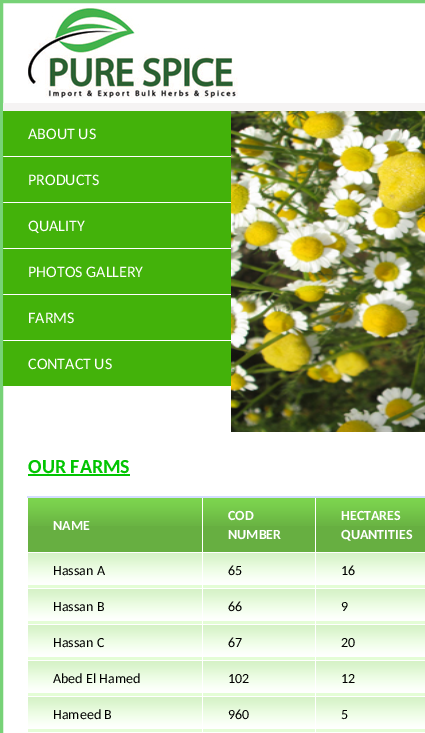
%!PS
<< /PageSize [425 733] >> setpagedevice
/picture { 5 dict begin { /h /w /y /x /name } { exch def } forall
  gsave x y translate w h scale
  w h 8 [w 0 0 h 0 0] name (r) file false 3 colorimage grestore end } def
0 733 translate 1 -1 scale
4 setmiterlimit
1 setgray
0 0 425 733 rectfill
0.467 0.824 0.467 setrgbcolor
3 setlinewidth
1.5 1.5 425 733 rectstroke
(img1.rgb) 28 8 210 90 picture
0.961 0.953 0.953 setrgbcolor
3 103 422 8 rectfill
0.263 0.698 0.039 setrgbcolor
3 111 228 45 rectfill
/Carlito-Regular [16 0 0 -16 0 0] selectfont
1 setgray
28 139 moveto (ABOUT US) show
0.263 0.698 0.039 setrgbcolor
3 157 228 45 rectfill
1 setgray
28 185 moveto (PRODUCTS) show
0.263 0.698 0.039 setrgbcolor
3 203 228 45 rectfill
1 setgray
28 231 moveto (QUALITY) show
0.263 0.698 0.039 setrgbcolor
3 249 228 45 rectfill
1 setgray
28 277 moveto (PHOTOS GALLERY) show
0.263 0.698 0.039 setrgbcolor
3 295 228 45 rectfill
1 setgray
28 323 moveto (FARMS) show
0.263 0.698 0.039 setrgbcolor
3 341 228 45 rectfill
1 setgray
28 369 moveto (CONTACT US) show
(img2.rgb) 231 111 194 321 picture
/Carlito-Bold [20 0 0 -20 0 0] selectfont
0.008 0.773 0.008 setrgbcolor
28 473 moveto (OUR FARMS) show
28 474 102 2 rectfill
0.404 0.686 0.255 setrgbcolor
28 526 174 26 rectfill
(img3.rgb) 28 498 174 28 picture
/Carlito-Bold [14 0 0 -14 0 0] selectfont
1 setgray
53 530 moveto (NAME) show
0.404 0.686 0.255 setrgbcolor
203 526 112 26 rectfill
(img4.rgb) 203 498 112 28 picture
1 setgray
228 520 moveto (COD) show
228 539 moveto (NUMBER) show
0.404 0.686 0.255 setrgbcolor
316 526 109 26 rectfill
(img5.rgb) 316 498 109 28 picture
0.827 0.867 1 setrgbcolor
27 496 398 2 rectfill
1 setgray
341 520 moveto (HECTARES) show
341 539 moveto (QUANTITIES) show
0.894 0.992 0.839 setrgbcolor
28 585 174 3 rectfill
(img6.rgb) 28 553 174 32 picture
/Carlito-Regular [14 0 0 -14 0 0] selectfont
0 setgray
53 575 moveto (Hassan A) show
0.894 0.992 0.839 setrgbcolor
203 585 112 3 rectfill
(img7.rgb) 203 553 112 32 picture
0 setgray
228 575 moveto (65) show
0.894 0.992 0.839 setrgbcolor
316 585 109 3 rectfill
(img8.rgb) 316 553 109 32 picture
0 setgray
341 575 moveto (16) show
0.894 0.992 0.839 setrgbcolor
28 621 174 3 rectfill
(img6.rgb) 28 589 174 32 picture
0 setgray
53 611 moveto (Hassan B) show
0.894 0.992 0.839 setrgbcolor
203 621 112 3 rectfill
(img7.rgb) 203 589 112 32 picture
0 setgray
228 611 moveto (66) show
0.894 0.992 0.839 setrgbcolor
316 621 109 3 rectfill
(img8.rgb) 316 589 109 32 picture
0 setgray
341 611 moveto (9) show
0.894 0.992 0.839 setrgbcolor
28 657 174 3 rectfill
(img6.rgb) 28 625 174 32 picture
0 setgray
53 647 moveto (Hassan C) show
0.894 0.992 0.839 setrgbcolor
203 657 112 3 rectfill
(img7.rgb) 203 625 112 32 picture
0 setgray
228 647 moveto (67) show
0.894 0.992 0.839 setrgbcolor
316 657 109 3 rectfill
(img8.rgb) 316 625 109 32 picture
0 setgray
341 647 moveto (20) show
0.894 0.992 0.839 setrgbcolor
28 693 174 3 rectfill
(img6.rgb) 28 661 174 32 picture
0 setgray
53 683 moveto (Abed El Hamed) show
0.894 0.992 0.839 setrgbcolor
203 693 112 3 rectfill
(img7.rgb) 203 661 112 32 picture
0 setgray
228 683 moveto (102) show
0.894 0.992 0.839 setrgbcolor
316 693 109 3 rectfill
(img8.rgb) 316 661 109 32 picture
0 setgray
341 683 moveto (12) show
0.894 0.992 0.839 setrgbcolor
28 729 174 3 rectfill
(img6.rgb) 28 697 174 32 picture
0 setgray
53 719 moveto (Hameed B) show
0.894 0.992 0.839 setrgbcolor
203 729 112 3 rectfill
(img7.rgb) 203 697 112 32 picture
0 setgray
228 719 moveto (960) show
0.894 0.992 0.839 setrgbcolor
316 729 109 3 rectfill
(img8.rgb) 316 697 109 32 picture
0 setgray
341 719 moveto (5) show
showpage
